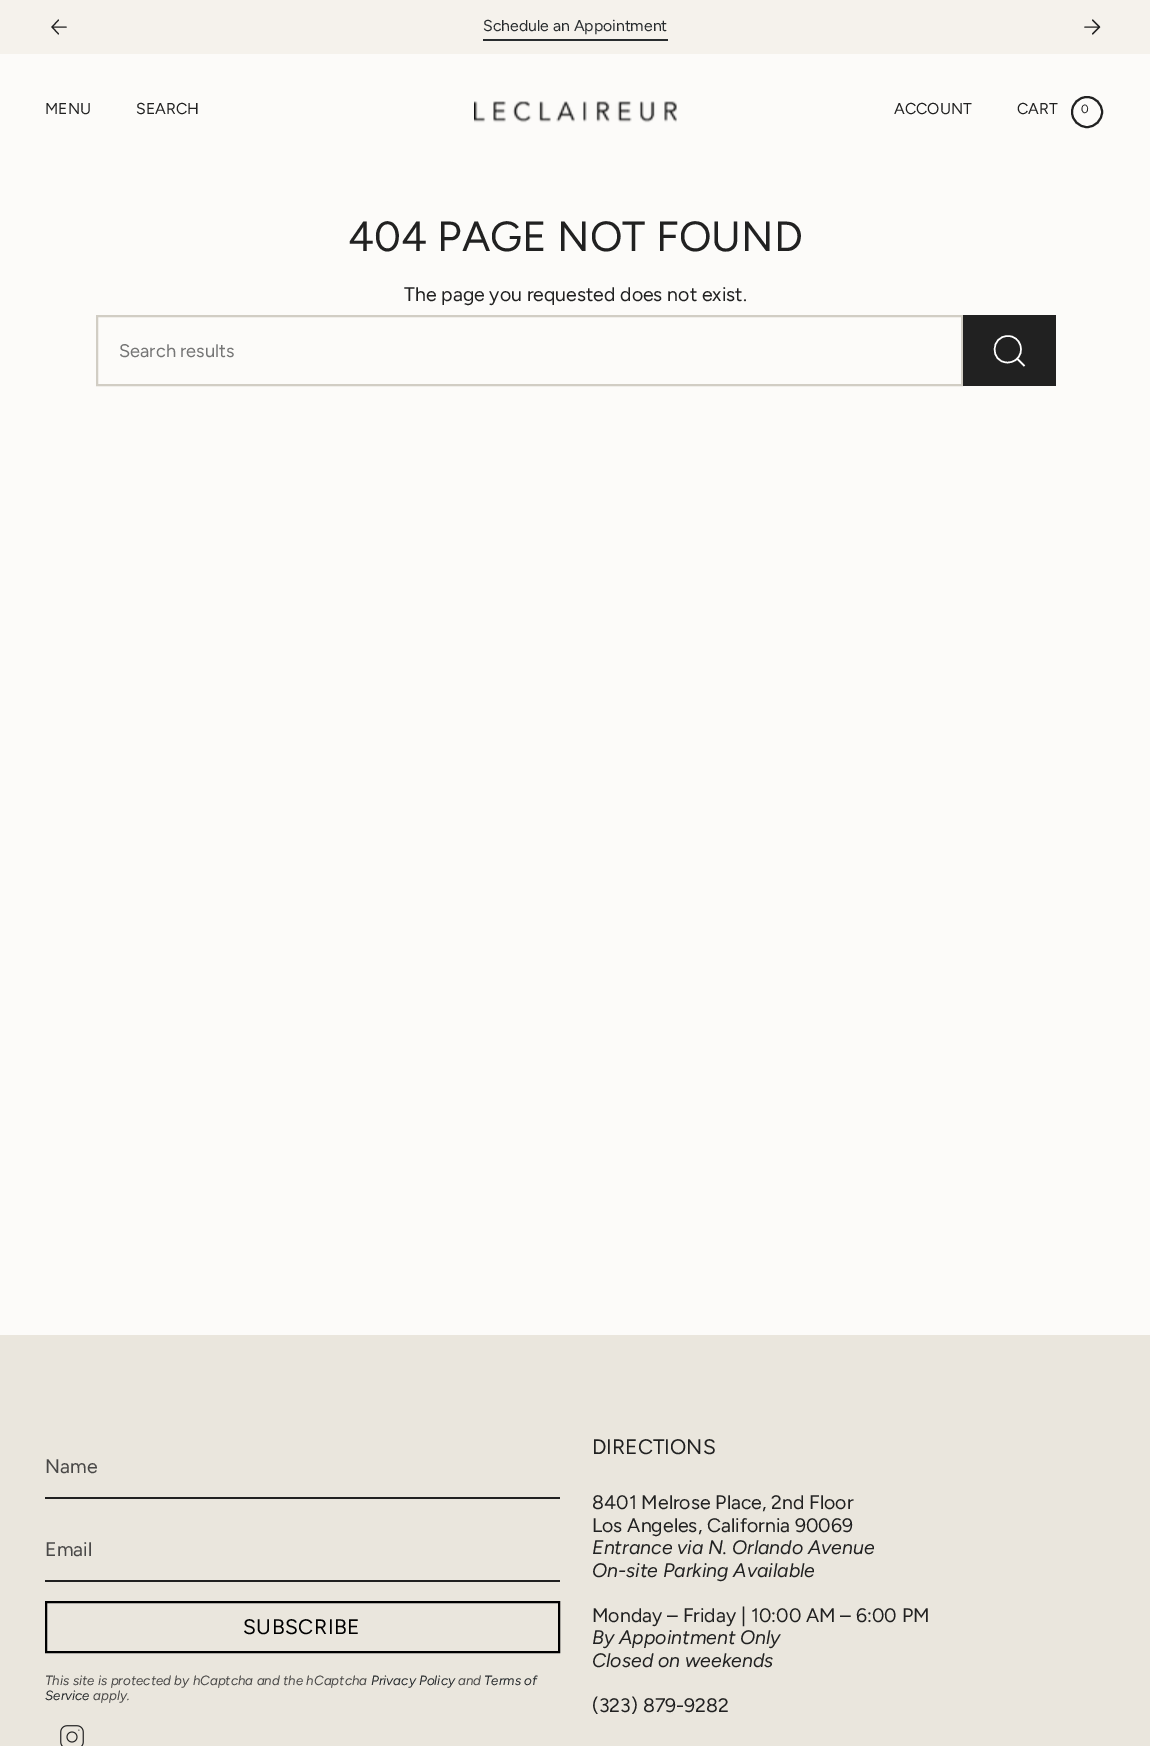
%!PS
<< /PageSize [1150 1746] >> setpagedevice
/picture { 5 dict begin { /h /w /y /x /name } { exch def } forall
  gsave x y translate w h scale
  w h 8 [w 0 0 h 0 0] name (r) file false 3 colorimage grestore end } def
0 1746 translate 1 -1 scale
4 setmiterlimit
0.988 0.984 0.976 setrgbcolor
0 0 1150 1746 rectfill
0.961 0.949 0.925 setrgbcolor
0 0 1150 54 rectfill
0.129 setgray
1.1 setlinewidth
1 setlinecap
1 setlinejoin
newpath 66 27 moveto 52 27 lineto 52 27 moveto 58.5 20 lineto 52 27 moveto 58.5 34 lineto stroke
/Figtree-Regular [15.8 0 0 -15.8 0 0] selectfont
0.157 0.173 0.18 setrgbcolor
483 31 moveto (Schedule an Appointment) show
483 39 185 2 rectfill
0.129 setgray
newpath 1085 27 moveto 1099.5 27 lineto 1099.5 27 moveto 1092.5 20 lineto 1099.5 27 moveto 1092.5 34 lineto stroke
45 114 moveto (MENU) show
136 114 moveto (SEARCH) show
(img1.rgb) 474 101 203 22 picture
894 114 moveto (ACCOUNT) show
1017 114 moveto (CART) show
2 setlinewidth
0 setlinecap
0 setlinejoin
newpath 1087 112 15 0 360 arc closepath stroke
/Figtree-Regular [12 0 0 -12 0 0] selectfont
1081 113 moveto (0) show
/Figtree-Regular [42 0 0 -42 0 0] selectfont
348 251 moveto (404 PAGE NOT FOUND) show
/Figtree-Regular [19.5 0 0 -19.5 0 0] selectfont
404 301 moveto (The page you requested does not exist.) show
0.82 0.804 0.769 setrgbcolor
97 316 865 69 rectstroke
/Figtree-Regular [18.25 0 0 -18.25 0 0] selectfont
0.459 setgray
119 357 moveto (Search results) show
0.129 setgray
963 315 93 71 rectfill
1 setgray
1.5 setlinewidth
newpath 1008 336 moveto 1020.5 336 1026 352.5 1015.5 360 curveto 1013 362 1010 362.5 1007 362.5 curveto 990 362 990.5 336 1008 336 curveto closepath 1017 358.5 moveto 1024.5 366 lineto stroke
0.918 0.902 0.867 setrgbcolor
0 1335 1150 411 rectfill
0.129 setgray
45 1497 515 2 rectfill
/Figtree-Regular [19.5 0 0 -19.5 0 0] selectfont
0.286 0.282 0.278 setrgbcolor
45 1473 moveto (Name) show
0.129 setgray
45 1580 515 2 rectfill
0.286 0.282 0.278 setrgbcolor
45 1556 moveto (Email) show
0 setgray
2 setlinewidth
46 1602 513 50 rectstroke
/Figtree-Regular [21 0 0 -21 0 0] selectfont
243 1634 moveto 0.5 0 (SUBSCRIBE) ashow
/Figtree-Italic [13.4 0 0 -13.4 0 0] selectfont
0.286 0.282 0.278 setrgbcolor
45 1685 moveto (This site is protected by hCaptcha and the hCaptcha) show
0.157 0.173 0.18 setrgbcolor
371 1685 moveto (Privacy Policy) show
0.286 0.282 0.278 setrgbcolor
458 1685 moveto (and) show
0.157 0.173 0.18 setrgbcolor
484 1685 moveto (Terms of) show
45 1700 moveto (Service) show
0.286 0.282 0.278 setrgbcolor
93 1700 moveto (apply.) show
(img2.rgb) 60 1725 24 21 picture
/Figtree-Regular [21 0 0 -21 0 0] selectfont
0.129 setgray
592 1454 moveto (DIRECTIONS) show
/Figtree-Regular [19.5 0 0 -19.5 0 0] selectfont
592 1509 moveto (8401 Melrose Place, 2nd Floor) show
592 1532 moveto (Los Angeles, California 90069) show
/Figtree-Italic [19.5 0 0 -19.5 0 0] selectfont
592 1554 moveto (Entrance via N. Orlando Avenue) show
592 1577 moveto (On-site Parking Available) show
/Figtree-Regular [19.5 0 0 -19.5 0 0] selectfont
592 1622 moveto (Monday – Friday | 10:00 AM – 6:00 PM) show
/Figtree-Italic [19.5 0 0 -19.5 0 0] selectfont
592 1644 moveto (By Appointment Only) show
592 1667 moveto (Closed on weekends) show
/Figtree-Regular [19.5 0 0 -19.5 0 0] selectfont
592 1712 moveto (\(323\) 879-9282) show
showpage
